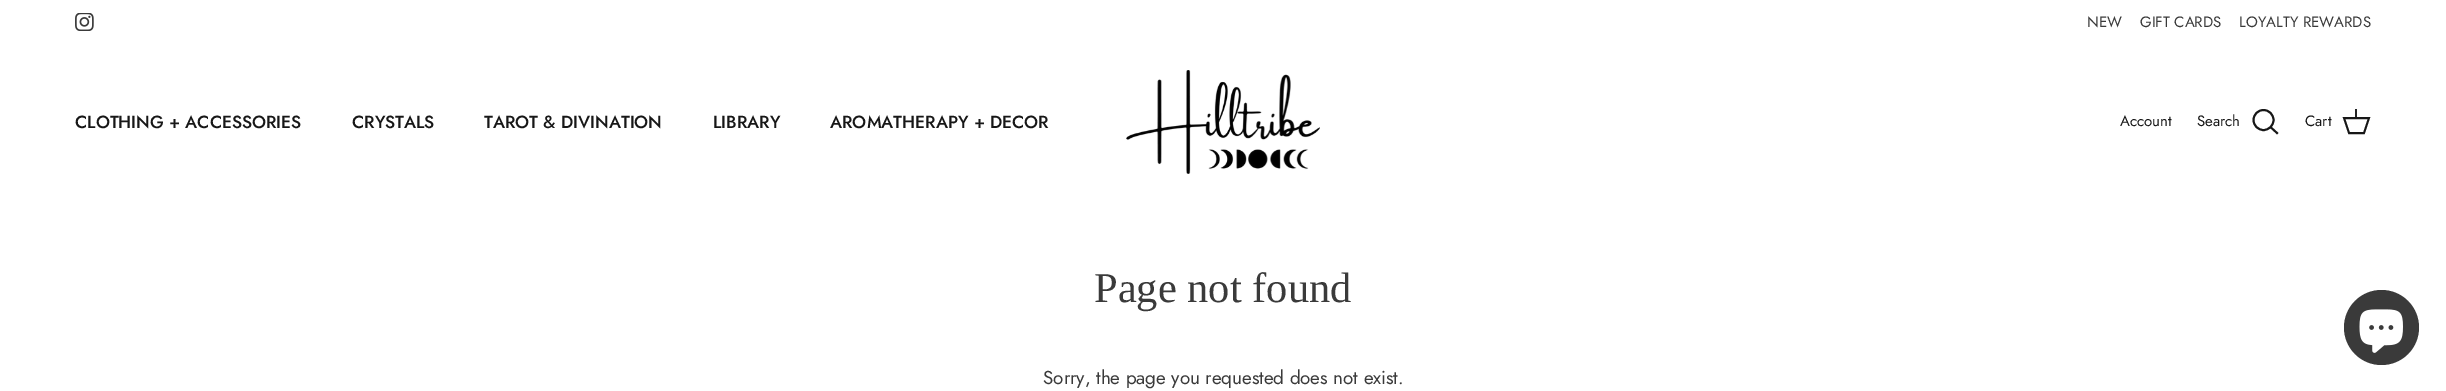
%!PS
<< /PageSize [2446 391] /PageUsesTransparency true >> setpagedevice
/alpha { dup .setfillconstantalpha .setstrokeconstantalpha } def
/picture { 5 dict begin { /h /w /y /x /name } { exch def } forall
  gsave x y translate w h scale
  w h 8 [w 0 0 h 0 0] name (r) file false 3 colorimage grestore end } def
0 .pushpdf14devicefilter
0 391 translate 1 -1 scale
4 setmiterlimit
1 setgray
0 0 2446 391 rectfill
(img1.rgb) 75 13 19 18 picture
/Jost-Regular [15 0 0 -15 0 0] selectfont
0.227 setgray
2087 27 moveto (NEW) show
2140 27 moveto (GIFT CARDS) show
2239 27 moveto (LOYALTY REWARDS) show
/Jost-Medium [17.5 0 0 -17.5 0 0] selectfont
0.09 setgray
75 128 moveto (CLOTHING + ACCESSORIES) show
352 128 moveto (CRYSTALS) show
484 128 moveto (TAROT & DIVINATION) show
713 128 moveto (LIBRARY) show
830 128 moveto (AROMATHERAPY + DECOR) show
(img2.rgb) 1126 70 194 104 picture
/Jost-Regular [15 0 0 -15 0 0] selectfont
2120 126 moveto (Account) show
2197 126 moveto (Search) show
1.9 setlinewidth
newpath 2263.5 120 10 0 360 arc closepath stroke
2 setlinecap
newpath 2271 127.5 moveto 2277 133 lineto stroke
2305 126 moveto (Cart) show
0 setlinecap
newpath 2344 118 moveto 2369 118 lineto 2364 133 lineto 2349 133 lineto closepath stroke
0.95 alpha
2355 109 2 9 rectfill
/LiberationSerif-Regular [42.5 0 0 -42.5 0 0] selectfont
1 alpha
0.227 setgray
1094 302 moveto (Page not found) show
/Jost-Regular [18.75 0 0 -18.75 0 0] selectfont
1043 384 moveto (Sorry, the page you requested does not exist.) show
newpath 2381.5 327.5 37.5 0 360 arc closepath fill
(img3.rgb) 2359 309 44 44 picture
.poppdf14devicefilter showpage
